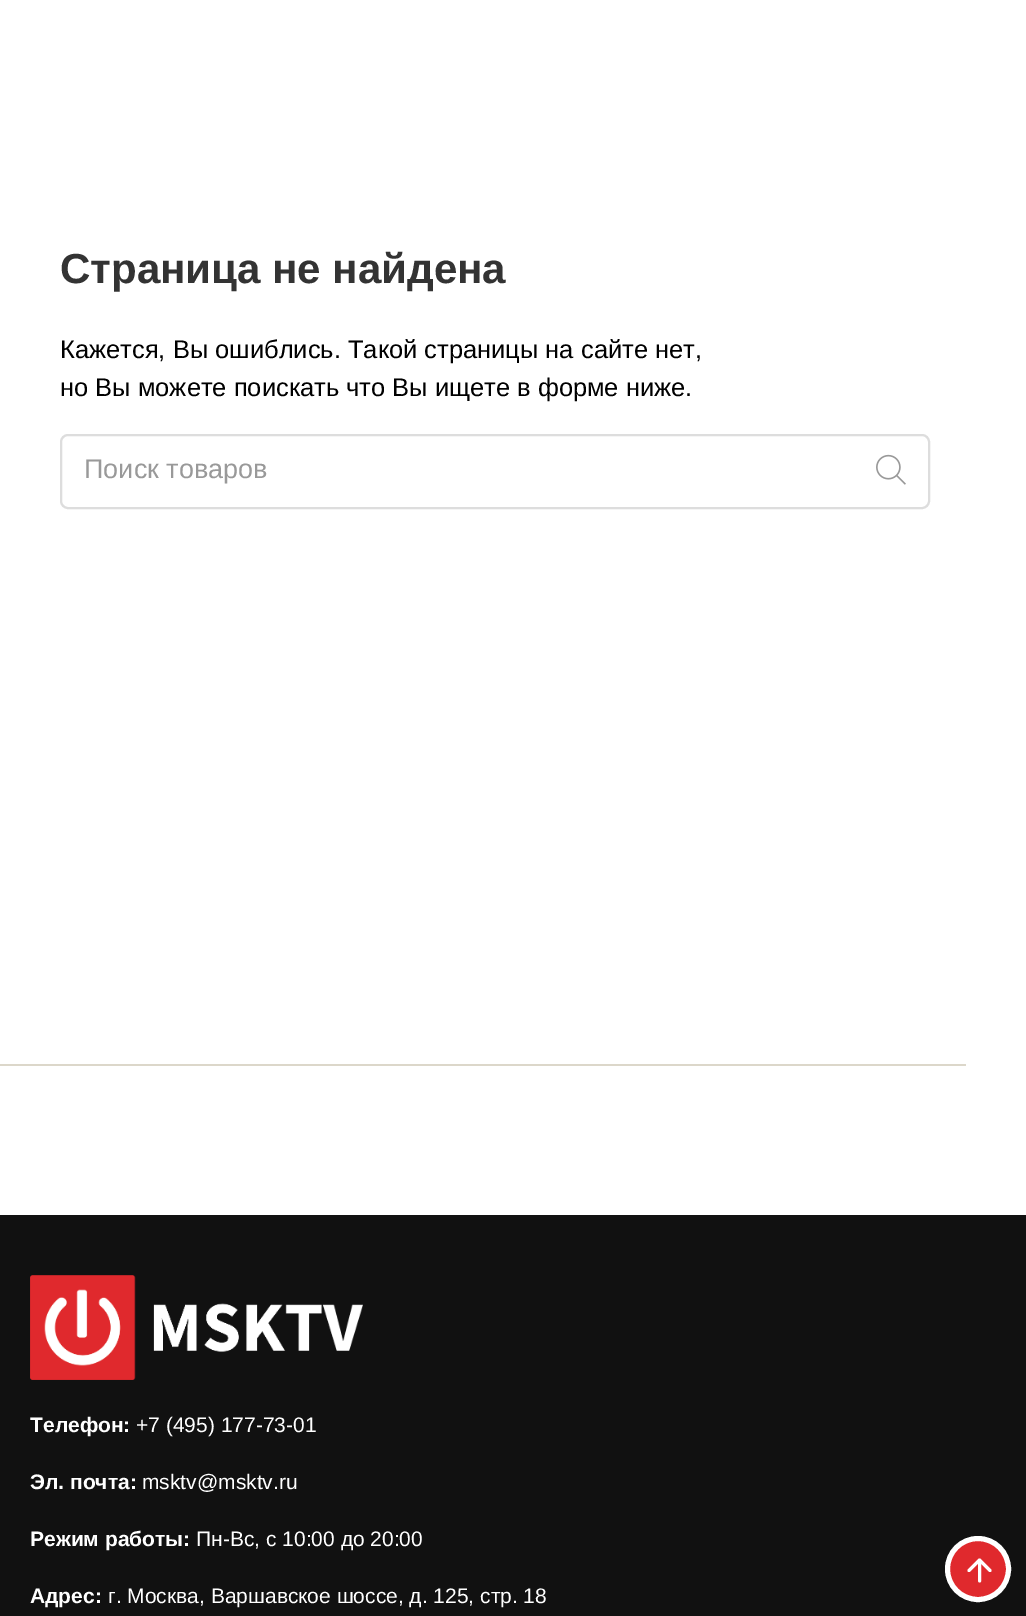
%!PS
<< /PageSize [1026 1616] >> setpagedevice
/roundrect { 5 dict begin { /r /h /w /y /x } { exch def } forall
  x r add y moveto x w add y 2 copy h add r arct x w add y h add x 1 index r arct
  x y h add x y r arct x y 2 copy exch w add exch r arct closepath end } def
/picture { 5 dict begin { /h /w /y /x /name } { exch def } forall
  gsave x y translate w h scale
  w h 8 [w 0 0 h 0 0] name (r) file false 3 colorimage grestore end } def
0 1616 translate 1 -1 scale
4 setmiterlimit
1 setgray
0 0 1026 1616 rectfill
/LiberationSans-Bold [42 0 0 -42 0 0] selectfont
0.2 setgray
60 283 moveto (Страница не найдена) show
/LiberationSans-Regular [25.5 0 0 -25.5 0 0] selectfont
0 setgray
60 358 moveto (Кажется, Вы ошиблись. Такой страницы на сайте нет,) show
60 396 moveto (но Вы можете поискать что Вы ищете в форме ниже.) show
0.867 setgray
2 setlinewidth
61 435 868 73 7 roundrect stroke
/LiberationSans-Regular [27 0 0 -27 0 0] selectfont
0.6 setgray
84 478 moveto (Поиск товаров) show
(img1.rgb) 876 454 30 31 picture
0.863 0.843 0.792 setrgbcolor
0 1064 966 2 rectfill
0.067 setgray
0 1215 1026 401 rectfill
(img2.rgb) 30 1275 333 105 picture
/LiberationSans-Bold [21 0 0 -21 0 0] selectfont
1 setgray
30 1432 moveto (Телефон:) show
/LiberationSans-Regular [21 0 0 -21 0 0] selectfont
136 1432 moveto (+7 \(495\) 177-73-01) show
/LiberationSans-Bold [21 0 0 -21 0 0] selectfont
30 1489 moveto (Эл. почта:) show
/LiberationSans-Regular [21 0 0 -21 0 0] selectfont
142 1489 moveto (msktv@msktv.ru) show
/LiberationSans-Bold [21 0 0 -21 0 0] selectfont
30 1546 moveto (Режим работы:) show
/LiberationSans-Regular [21 0 0 -21 0 0] selectfont
196 1546 moveto (Пн-Вс, с 10:00 до 20:00) show
/LiberationSans-Bold [21 0 0 -21 0 0] selectfont
30 1603 moveto (Адрес:) show
/LiberationSans-Regular [21 0 0 -21 0 0] selectfont
108 1603 moveto (г. Москва, Варшавское шоссе, д. 125, стр. 18) show
0.878 0.161 0.176 setrgbcolor
newpath 978 1569 30.5 0 360 arc closepath gsave fill grestore
1 setgray
5 setlinewidth
stroke
3 setlinewidth
1 setlinecap
1 setlinejoin
newpath 979.5 1581 moveto 979.5 1561.5 lineto 969 1570.5 moveto 979.5 1560 lineto 990 1570.5 lineto stroke
showpage
